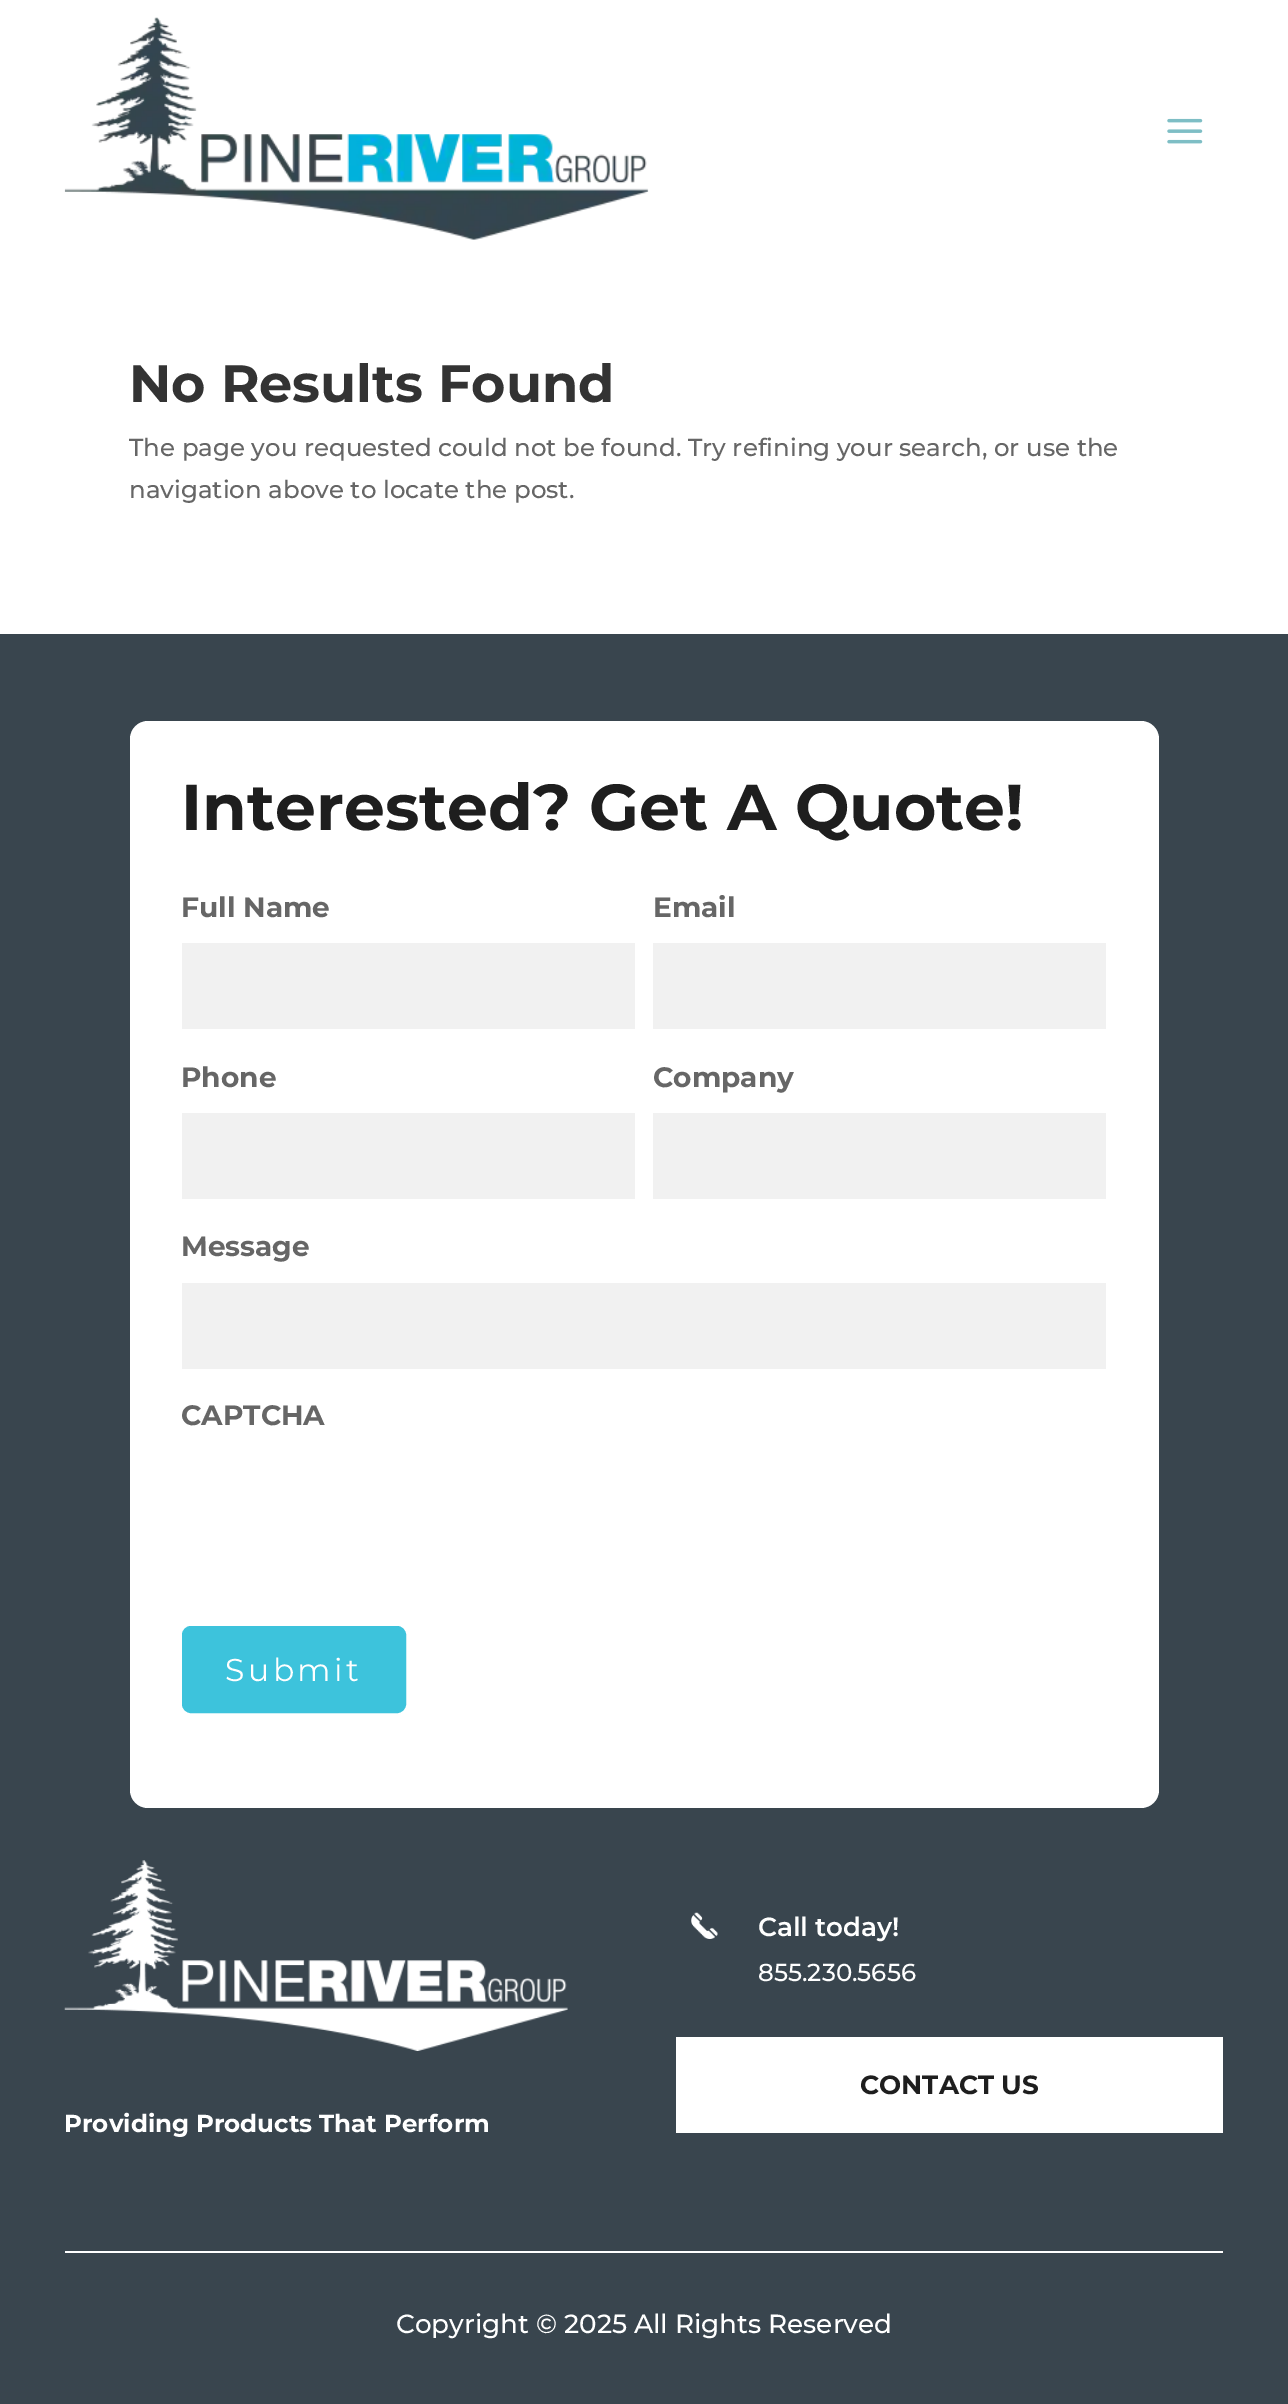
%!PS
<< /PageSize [1288 2404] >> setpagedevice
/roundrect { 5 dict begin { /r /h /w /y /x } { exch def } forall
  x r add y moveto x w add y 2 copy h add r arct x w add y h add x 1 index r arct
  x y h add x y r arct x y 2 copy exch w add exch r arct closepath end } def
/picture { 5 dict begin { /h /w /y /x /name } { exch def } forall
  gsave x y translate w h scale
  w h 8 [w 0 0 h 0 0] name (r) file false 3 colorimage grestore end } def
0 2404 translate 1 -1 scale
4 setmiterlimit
1 setgray
0 0 1288 2404 rectfill
(img1.rgb) 64 17 585 223 picture
(img2.rgb) 1167 118 36 26 picture
/Montserrat-Bold [52.5 0 0 -52.5 0 0] selectfont
0.2 setgray
129 402 moveto (No Results Found) show
/Montserrat-Medium [24.5 0 0 -24.5 0 0] selectfont
0.4 setgray
129 456 moveto (The page you requested could not be found. Try refining your search, or use the) show
129 498 moveto (navigation above to locate the post.) show
0.224 0.271 0.306 setrgbcolor
0 634 1288 1770 rectfill
1 setgray
130 721 1029 1087 18 roundrect fill
/Montserrat-Bold [64.75 0 0 -64.75 0 0] selectfont
0.118 setgray
181 830 moveto (Interested? Get A Quote!) show
/Montserrat-Bold [28 0 0 -28 0 0] selectfont
0.4 setgray
181 917 moveto (Full Name) show
0.945 setgray
182 943 453 86 rectfill
0.4 setgray
653 917 moveto (Email) show
0.945 setgray
653 943 453 86 rectfill
0.4 setgray
181 1087 moveto (Phone) show
0.945 setgray
182 1113 453 86 rectfill
0.4 setgray
653 1087 moveto (Company) show
0.945 setgray
653 1113 453 86 rectfill
0.4 setgray
181 1256 moveto (Message) show
0.945 setgray
182 1283 924 86 rectfill
0.4 setgray
181 1425 moveto (CAPTCHA) show
0.239 0.765 0.863 setrgbcolor
184 1628 220 83 7 roundrect gsave fill grestore
4 setlinewidth
stroke
/Montserrat-Regular [31.5 0 0 -31.5 0 0] selectfont
1 setgray
225 1681 moveto 3.5 0 (Submit) ashow
65 2251 1158 2 rectfill
(img3.rgb) 691 1912 27 27 picture
/Montserrat-SemiBold [26.25 0 0 -26.25 0 0] selectfont
758 1936 moveto (Call today!) show
/Montserrat-Medium [24.5 0 0 -24.5 0 0] selectfont
758 1981 moveto (855.230.5656) show
676 2037 547 96 rectfill
/Montserrat-Bold [26.25 0 0 -26.25 0 0] selectfont
0.118 setgray
860 2094 moveto (CONTACT US) show
(img4.rgb) 64 1860 504 191 picture
/Montserrat-Bold [24.5 0 0 -24.5 0 0] selectfont
1 setgray
64 2132 moveto (Providing Products That Perform) show
/Montserrat-Medium [26.25 0 0 -26.25 0 0] selectfont
396 2333 moveto (Copyright © 2025 All Rights Reserved) show
showpage
